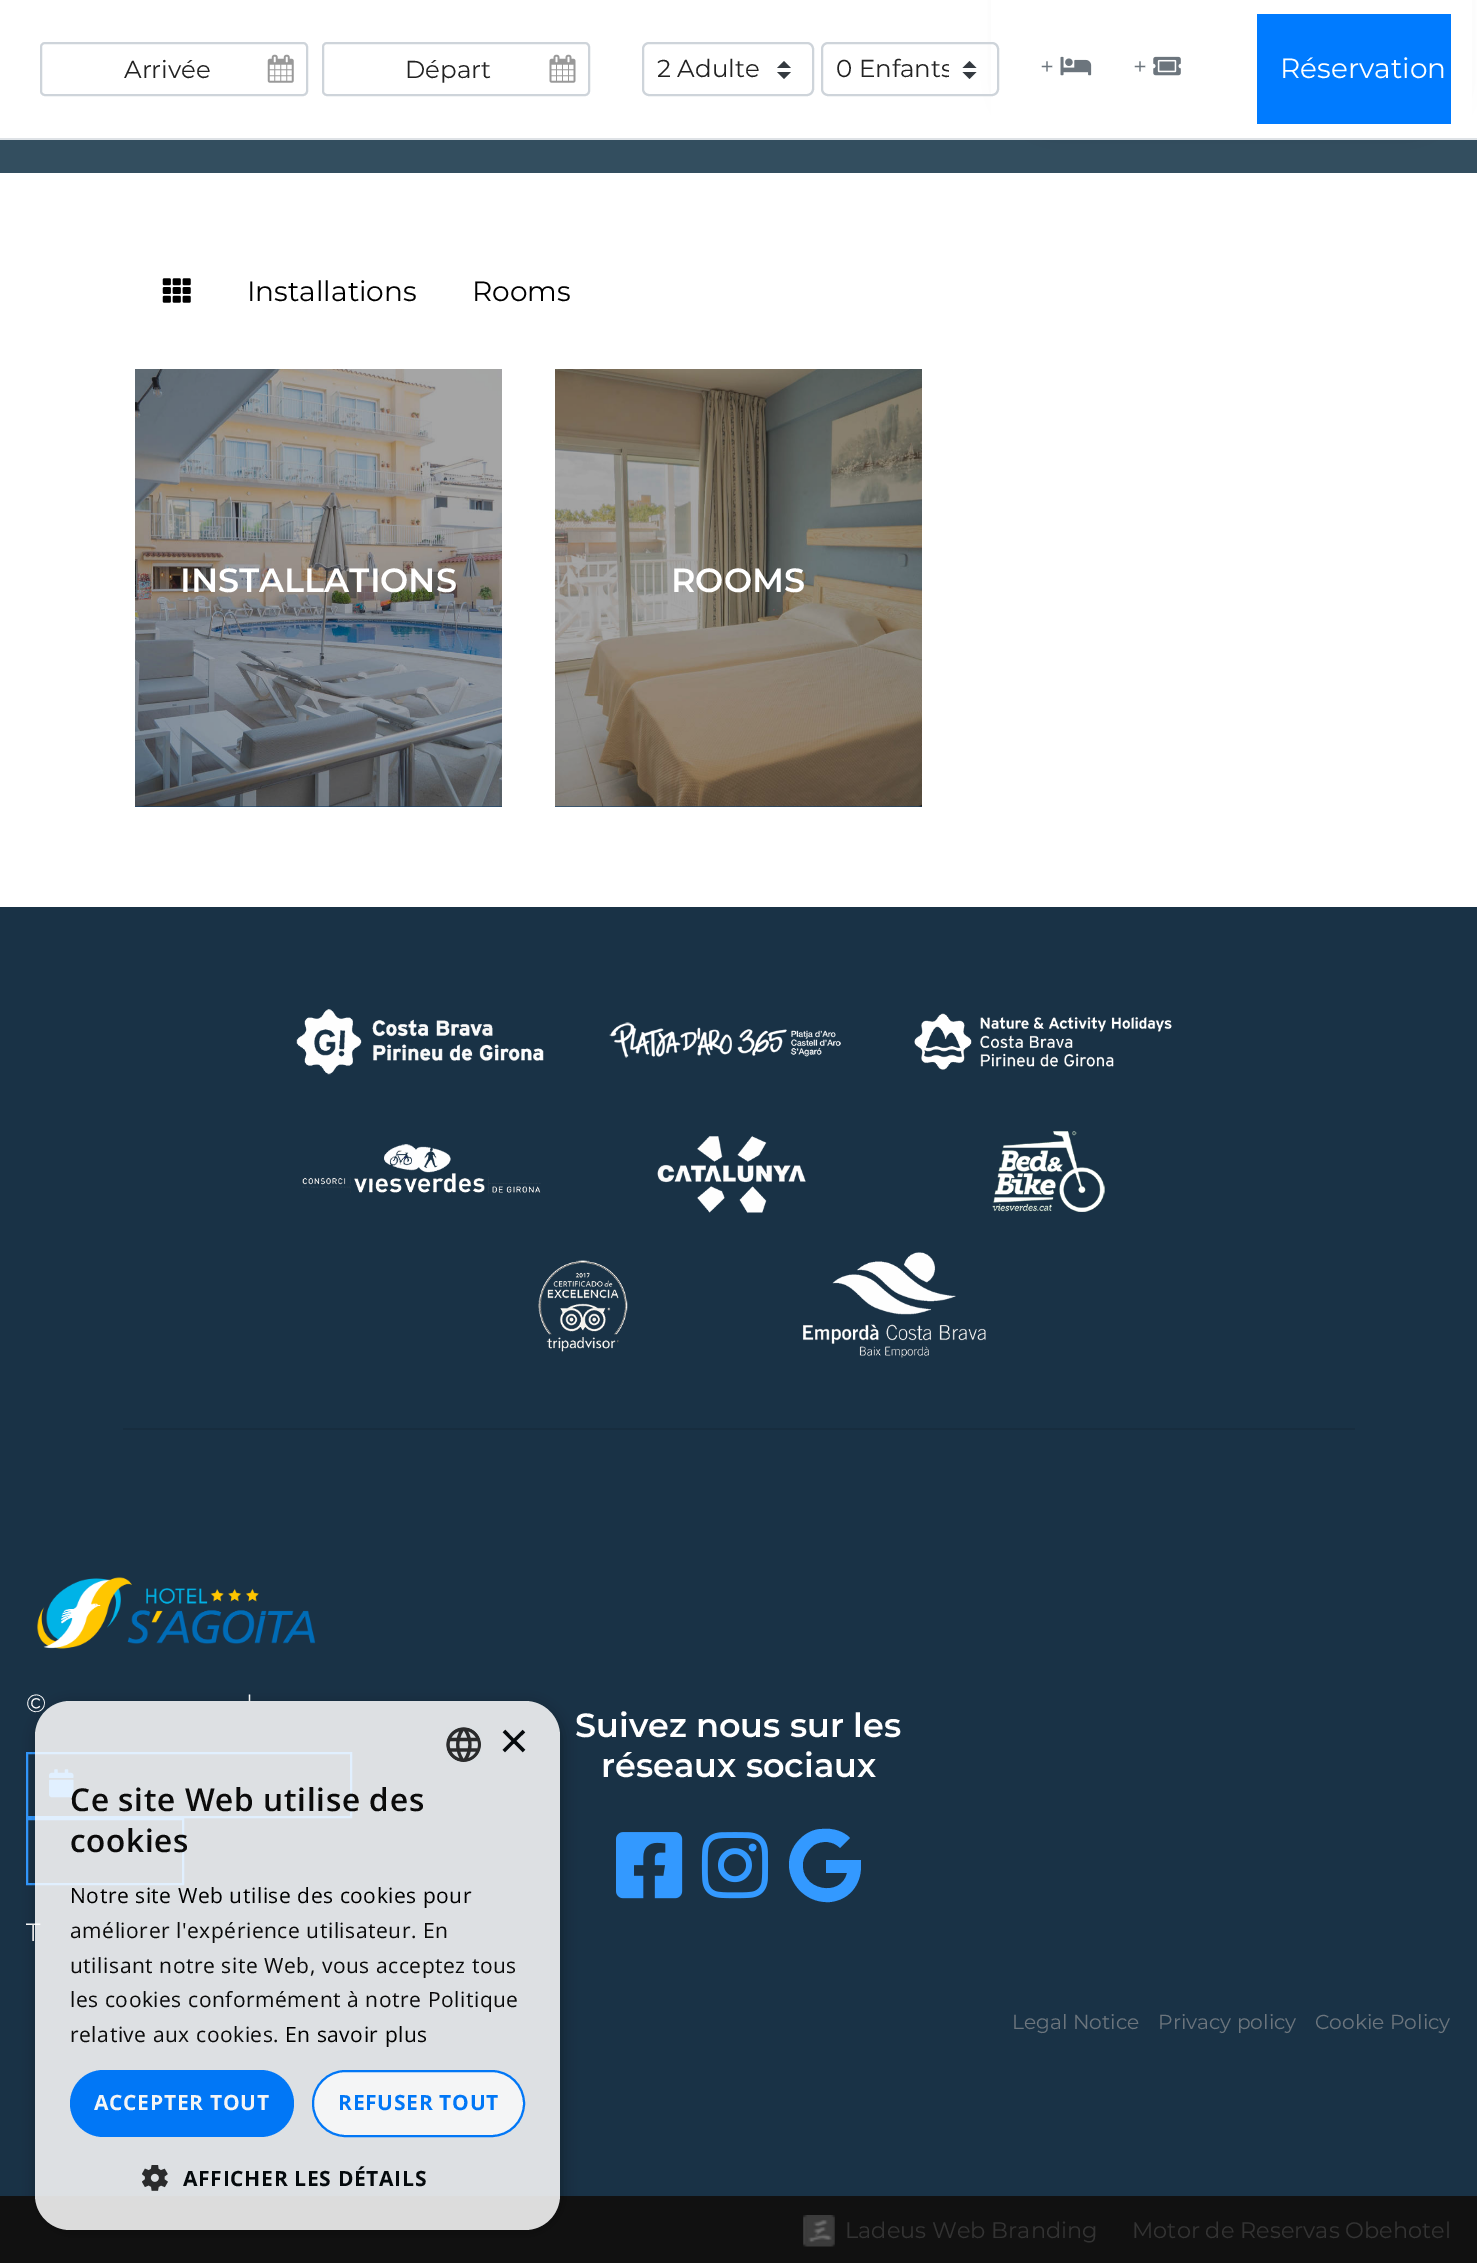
%!PS
<< /PageSize [1477 2263] /PageUsesTransparency true >> setpagedevice
/alpha { dup .setfillconstantalpha .setstrokeconstantalpha } def
/roundrect { 5 dict begin { /r /h /w /y /x } { exch def } forall
  x r add y moveto x w add y 2 copy h add r arct x w add y h add x 1 index r arct
  x y h add x y r arct x y 2 copy exch w add exch r arct closepath end } def
/shadow { 12 dict begin { /a /b /q /h /w /y /x } { exch def } forall gsave /was 0 def
  9 -2 -9 { dup b mul 4 div /e exch def 1 sub .425 mul 2.718 exch exp 1 add a .99 .min exch div /now exch def
    1 1 now sub 1 was sub div sub alpha /was now def
    w h .min e 2 mul add 0 gt { x e sub y e sub w e 2 mul add h e 2 mul add
      q e add b .6 mul add w h .min 2 div e add .min 0 .max roundrect fill } if } for grestore end } def
/picture { 5 dict begin { /h /w /y /x /name } { exch def } forall
  gsave x y translate w h scale
  w h 8 [w 0 0 h 0 0] name (r) file false 3 colorimage grestore end } def
0 .pushpdf14devicefilter
0 2263 translate 1 -1 scale
4 setmiterlimit
1 setgray
0 0 1477 2263 rectfill
0.2 0.306 0.373 setrgbcolor
0 140 1477 33 rectfill
0 setgray
1012 -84 439 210 42 14 0.15 shadow
1 setgray
991 0 481 138 rectfill
0.871 0.886 0.902 setrgbcolor
0 138 1477 2 rectfill
0.808 0.831 0.855 setrgbcolor
2 setlinewidth
41 43 266 52 4 roundrect stroke
/Montserrat-Regular [24.5 0 0 -24.5 0 0] selectfont
0.133 setgray
124 78 moveto (Arrivée) show
(img1.rgb) 267 54 27 29 picture
0.808 0.831 0.855 setrgbcolor
323 43 266 52 4 roundrect stroke
0.133 setgray
405 78 moveto (Départ) show
(img2.rgb) 549 54 27 29 picture
0.204 0.227 0.251 setrgbcolor
newpath 784 61 moveto 777 68 lineto 791 68 lineto closepath 784 79 moveto 777 72 lineto 791 72 lineto closepath fill
0.808 0.831 0.855 setrgbcolor
643 43 170 52 6 roundrect stroke
0.133 setgray
657 77 moveto (2 Adulte) show
0.204 0.227 0.251 setrgbcolor
newpath 969.5 61 moveto 962.5 68 lineto 976.5 68 lineto closepath 969.5 79 moveto 962.5 72 lineto 976.5 72 lineto closepath fill
0.808 0.831 0.855 setrgbcolor
822 43 176 52 6 roundrect stroke
gsave
837 51 112 37 rectclip
0.133 setgray
836 77 moveto (0 Enfants) show
grestore
0.424 0.459 0.49 setrgbcolor
1040 75 moveto (+) show
(img3.rgb) 1060 56 32 20 picture
1133 75 moveto (+) show
(img4.rgb) 1153 56 28 20 picture
0 0.482 1 setrgbcolor
1257 14 194 110 rectfill
/Montserrat-Regular [28 0 0 -28 0 0] selectfont
1 setgray
1280 78 moveto (Réservation) show
(img5.rgb) 162 278 29 25 picture
0 setgray
247 301 moveto (Installations) show
472 301 moveto (Rooms) show
0.086 0.259 0.42 setrgbcolor
135 806 367 1 rectfill
(img6.rgb) 135 369 367 438 picture
/Montserrat-SemiBold [33.5 0 0 -33.5 0 0] selectfont
1 setgray
180 592 moveto (INSTALLATIONS) show
0.086 0.259 0.42 setrgbcolor
555 806 367 1 rectfill
(img7.rgb) 555 369 367 438 picture
1 setgray
671 592 moveto (ROOMS) show
0.098 0.196 0.275 setrgbcolor
0 907 1477 1289 rectfill
(img8.rgb) 296 1009 248 66 picture
(img9.rgb) 609 1022 232 36 picture
(img10.rgb) 914 1013 258 57 picture
(img11.rgb) 302 1144 239 50 picture
(img12.rgb) 657 1136 149 77 picture
(img13.rgb) 992 1131 113 81 picture
(img14.rgb) 538 1260 90 92 picture
(img15.rgb) 803 1252 183 106 picture
0.09 0.176 0.247 setrgbcolor
123 1428 1232 2 rectfill
(img16.rgb) 37 1577 279 72 picture
/Montserrat-Regular [25 0 0 -25 0 0] selectfont
1 setgray
26 1712 moveto (©) show
247 1712 moveto (') show
0.2 0.6 1 setrgbcolor
27 1753 324 64 rectstroke
(img17.rgb) 49 1769 25 29 picture
27 1819 156 65 rectstroke
1 setgray
26 1941 moveto (T) show
/Montserrat-SemiBold [33.5 0 0 -33.5 0 0] selectfont
575 1737 moveto (Suivez nous sur les) show
601 1777 moveto (réseaux sociaux) show
(img18.rgb) 616 1832 67 67 picture
(img19.rgb) 701 1832 68 67 picture
0.2 0.6 1 setrgbcolor
newpath 861 1866 moveto 861 1885 849 1900 830 1902 curveto 796 1904 775 1864 800 1839 curveto 806 1833 814 1829 822 1829 curveto 833 1828 843 1831 850 1838 curveto 840 1848 lineto 834 1841 822 1840 814 1845 curveto 809 1849 804 1855 803 1862 curveto 799 1891 842 1898 847 1873 curveto 826 1873 lineto 826 1860 lineto 861 1860 lineto closepath fill
/Montserrat-Regular [20.25 0 0 -20.25 0 0] selectfont
0.424 0.459 0.49 setrgbcolor
1012 2029 moveto (Legal Notice) show
1158 2029 moveto (Privacy policy) show
1315 2029 moveto (Cookie Policy) show
0.067 setgray
0 2196 1477 67 rectfill
(img20.rgb) 803 2215 32 32 picture
/Montserrat-Regular [22.4 0 0 -22.4 0 0] selectfont
0.2 setgray
845 2238 moveto (Ladeus Web Branding) show
1132 2238 moveto (Motor de Reservas Obehotel) show
gsave
newpath 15 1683 moveto 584 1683 lineto 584 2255 lineto 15 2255 lineto closepath 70 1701 moveto 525 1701 lineto 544.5 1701 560 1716.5 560 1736 curveto 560 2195 lineto 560 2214.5 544.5 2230 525 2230 curveto 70 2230 lineto 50.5 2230 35 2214.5 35 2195 curveto 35 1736 lineto 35 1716.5 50.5 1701 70 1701 curveto closepath eoclip newpath
0 setgray
37 1705 525 528 35 7 0.33 shadow
grestore
0.85 alpha
1 setgray
35 1701 525 529 35 roundrect fill
1 alpha
(img21.rgb) 446 1727 35 35 picture
/LiberationSans-Regular [51 0 0 -51 0 0] selectfont
0.02 0.039 0.051 setrgbcolor
499 1758 moveto (×) show
/OpenSans-SemiBold [31.5 0 0 -31.5 0 0] selectfont
0.043 setgray
70 1811 moveto 0.7 0 (Ce site Web utilise des) ashow
70 1852 moveto 0.7 0 (cookies) ashow
/OpenSans-Regular [21 0 0 -21 0 0] selectfont
0 setgray
70 1903 moveto 0.55 0 (Notre site Web utilise des cookies pour) ashow
0.043 setgray
70 1938 moveto 0.55 0 (améliorer l'expérience utilisateur. En) ashow
70 1973 moveto 0.55 0 (utilisant notre site Web, vous acceptez tous) ashow
70 2007 moveto 0.55 0 (les cookies conformément à notre Politique) ashow
70 2042 moveto 0.55 0 (relative aux cookies.) ashow
0 setgray
285 2042 moveto 0.55 0 (En savoir plus) ashow
0.004 0.467 0.965 setrgbcolor
70 2070 224 67 33.5 roundrect fill
/OpenSans-Bold [21 0 0 -21 0 0] selectfont
0.957 0.961 0.965 setrgbcolor
94 2110 moveto 0.7 0 (ACCEPTER TOUT) ashow
313 2071 211 65 32.5 roundrect gsave fill grestore
0.004 0.467 0.965 setrgbcolor
stroke
338 2110 moveto 0.7 0 (REFUSER TOUT) ashow
(img22.rgb) 142 2165 26 26 picture
0.02 0.039 0.051 setrgbcolor
183 2186 moveto 0.7 0 (AFFICHER LES DÉTAILS) ashow
.poppdf14devicefilter showpage
